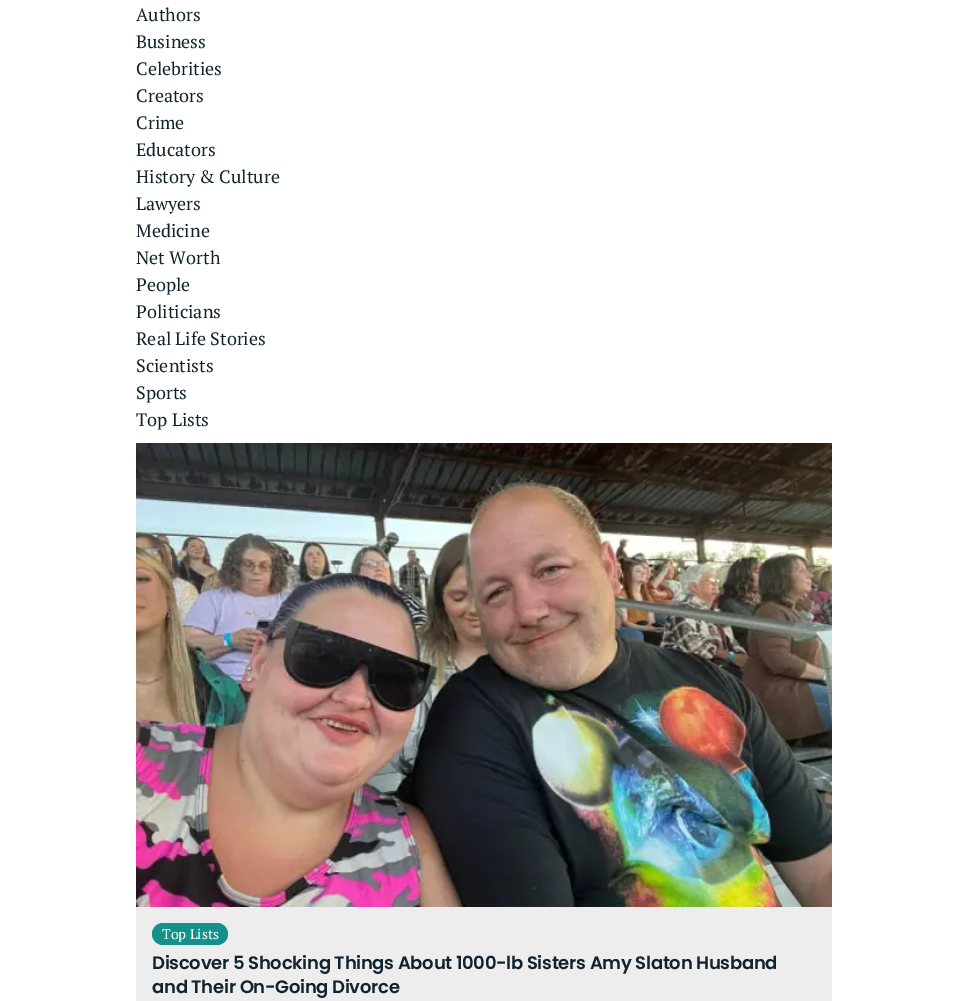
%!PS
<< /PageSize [967 1001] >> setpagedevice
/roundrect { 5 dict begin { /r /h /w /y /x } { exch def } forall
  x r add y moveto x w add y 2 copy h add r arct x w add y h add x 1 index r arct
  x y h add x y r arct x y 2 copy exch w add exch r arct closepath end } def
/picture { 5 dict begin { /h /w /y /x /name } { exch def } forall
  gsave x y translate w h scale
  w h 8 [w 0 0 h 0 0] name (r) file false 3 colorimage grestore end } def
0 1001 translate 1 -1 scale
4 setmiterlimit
1 setgray
0 0 967 1001 rectfill
/PTSerif-Regular [18 0 0 -18 0 0] selectfont
0.071 0.137 0.18 setrgbcolor
136 21 moveto (Authors) show
136 48 moveto (Business) show
136 75 moveto (Celebrities) show
136 102 moveto (Creators) show
136 129 moveto (Crime) show
136 156 moveto (Educators) show
136 183 moveto (History & Culture) show
136 210 moveto (Lawyers) show
136 237 moveto (Medicine) show
136 264 moveto (Net Worth) show
136 291 moveto (People) show
136 318 moveto (Politicians) show
136 345 moveto (Real Life Stories) show
136 372 moveto (Scientists) show
136 399 moveto (Sports) show
136 426 moveto (Top Lists) show
0.929 setgray
136 907 696 94 rectfill
(img1.rgb) 136 443 696 464 picture
0.078 0.569 0.545 setrgbcolor
152 923 76 22 11 roundrect fill
/PTSerif-Regular [14 0 0 -14 0 0] selectfont
1 setgray
162 939 moveto (Top Lists) show
/Poppins-SemiBold [18 0 0 -18 0 0] selectfont
0.071 0.137 0.18 setrgbcolor
152 969 moveto -0.3 0 (Discover 5 Shocking Things About 1000-lb Sisters Amy Slaton Husband) ashow
152 993 moveto -0.3 0 (and Their On-Going Divorce) ashow
showpage
